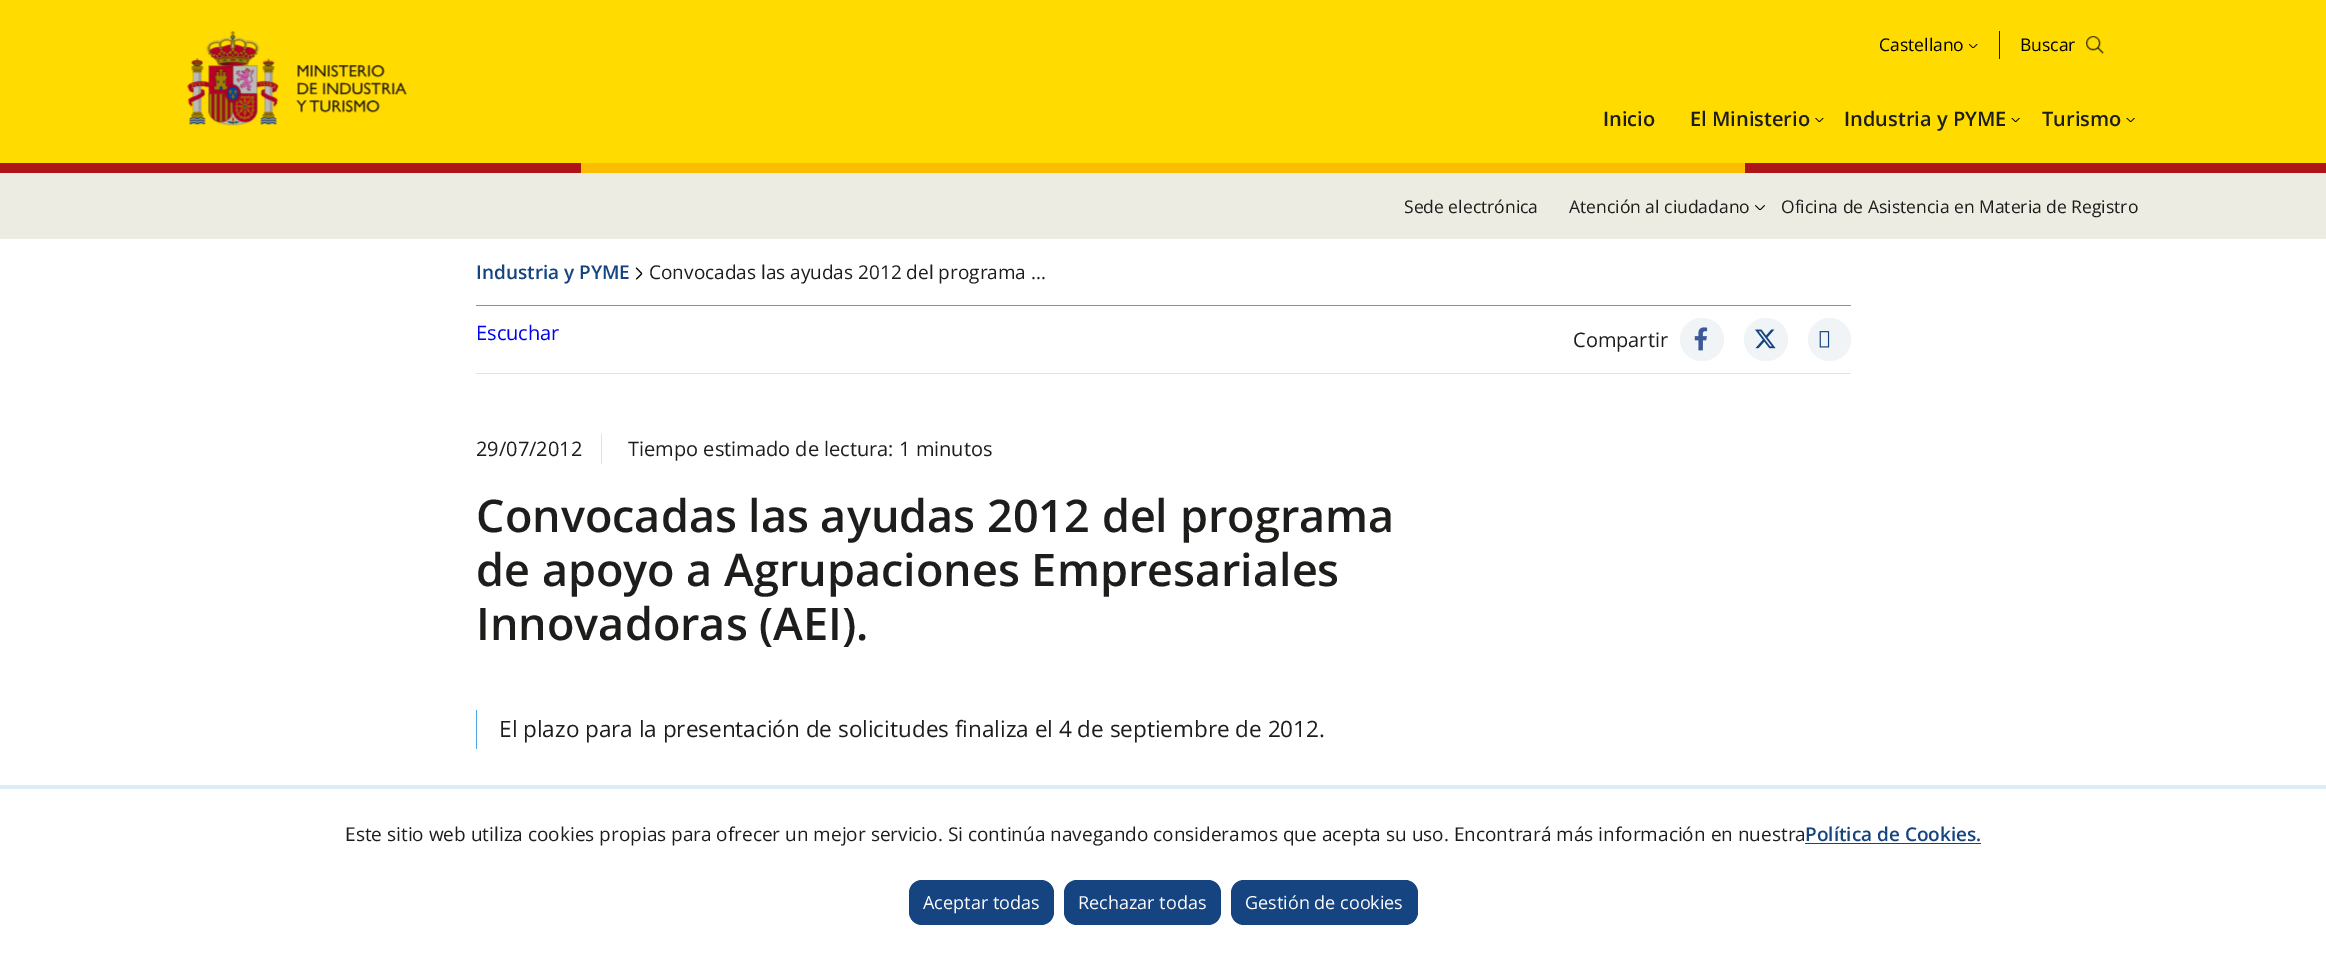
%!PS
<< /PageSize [2326 953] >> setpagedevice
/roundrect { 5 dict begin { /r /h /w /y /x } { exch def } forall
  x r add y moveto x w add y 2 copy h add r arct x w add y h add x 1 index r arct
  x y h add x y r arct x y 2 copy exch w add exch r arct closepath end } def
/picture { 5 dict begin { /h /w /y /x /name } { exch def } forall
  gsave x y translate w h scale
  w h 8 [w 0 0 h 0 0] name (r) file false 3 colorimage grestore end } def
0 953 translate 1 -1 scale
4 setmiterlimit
1 setgray
0 0 2326 953 rectfill
1 0.859 0 setrgbcolor
0 0 2326 163 rectfill
(img1.rgb) 187 31 220 95 picture
0.114 0.114 0.106 setrgbcolor
1999 31 1 28 rectfill
/OpenSans-Regular [17.5 0 0 -17.5 0 0] selectfont
0 setgray
1879 51 moveto (Castellano) show
(img2.rgb) 1969 44 9 4 picture
2020 51 moveto (Buscar) show
(img3.rgb) 2086 36 18 18 picture
/OpenSans-SemiBold [20 0 0 -20 0 0] selectfont
0.114 0.114 0.106 setrgbcolor
1603 126 moveto (Inicio) show
1690 126 moveto (El Ministerio) show
(img4.rgb) 1815 118 9 4 picture
1844 126 moveto (Industria y PYME) show
(img5.rgb) 2011 118 9 4 picture
2042 126 moveto (Turismo) show
(img5.rgb) 2126 118 9 4 picture
0.678 0.082 0.098 setrgbcolor
0 163 581 10 rectfill
0.98 0.741 0 setrgbcolor
581 163 1164 10 rectfill
0.678 0.082 0.098 setrgbcolor
1745 163 581 10 rectfill
0.925 0.925 0.886 setrgbcolor
0 173 2326 66 rectfill
/OpenSans-Regular [17.5 0 0 -17.5 0 0] selectfont
0.114 0.114 0.106 setrgbcolor
1404 213 moveto (Sede electrónica) show
1569 213 moveto (Atención al ciudadano) show
(img6.rgb) 1755 205 10 5 picture
1781 213 moveto (Oficina de Asistencia en Materia de Registro) show
0.298 0.647 0.878 setrgbcolor
476 305 1375 1 rectfill
/OpenSans-SemiBold [19 0 0 -19 0 0] selectfont
0.082 0.267 0.506 setrgbcolor
476 279 moveto (Industria y PYME) show
(img7.rgb) 635 267 8 13 picture
/OpenSans-Regular [19 0 0 -19 0 0] selectfont
0.114 0.114 0.106 setrgbcolor
649 279 moveto (Convocadas las ayudas 2012 del programa ...) show
0.89 setgray
476 373 1375 1 rectfill
/OpenSans-Regular [20 0 0 -20 0 0] selectfont
0 0 0.933 setrgbcolor
476 340 moveto (Escuchar) show
0.114 0.114 0.106 setrgbcolor
1573 347 moveto (Compartir) show
0.941 0.957 0.965 setrgbcolor
1680 318 44 43 21.5 roundrect fill
(img8.rgb) 1694 327 14 24 picture
1744 318 44 43 21.5 roundrect fill
(img9.rgb) 1755 329 21 20 picture
newpath 1829.5 339.5 21.5 0 360 arc closepath fill
(img10.rgb) 1819 331 11 17 picture
0.89 setgray
601 434 1 30 rectfill
0.114 0.114 0.106 setrgbcolor
476 456 moveto (29/07/2012) show
628 456 moveto (Tiempo estimado de lectura: 1 minutos) show
/OpenSans-SemiBold [45 0 0 -45 0 0] selectfont
476 532 moveto (Convocadas las ayudas 2012 del programa) show
476 586 moveto (de apoyo a Agrupaciones Empresariales) show
476 640 moveto (Innovadoras \(AEI\).) show
0.298 0.647 0.878 setrgbcolor
476 710 1 39 rectfill
/OpenSans-Regular [22.5 0 0 -22.5 0 0] selectfont
0.114 0.114 0.106 setrgbcolor
499 737 moveto (El plazo para la presentación de solicitudes finaliza el 4 de septiembre de 2012.) show
0.859 0.929 0.976 setrgbcolor
0 785 2326 4 rectfill
/OpenSans-Regular [19 0 0 -19 0 0] selectfont
0.114 0.114 0.106 setrgbcolor
345 841 moveto (Este sitio web utiliza cookies propias para ofrecer un mejor servicio. Si continúa navegando consideramos que acepta su uso. Encontrará más información en nuestra) show
/OpenSans-SemiBold [19 0 0 -19 0 0] selectfont
0.082 0.267 0.506 setrgbcolor
1805 841 moveto (Política de Cookies.) show
1805 843 176 1 rectfill
909 880 145 45 13 roundrect fill
/OpenSans-Regular [18 0 0 -18 0 0] selectfont
1 setgray
923 909 moveto (Aceptar todas) show
0.082 0.267 0.506 setrgbcolor
1064 880 157 45 13 roundrect fill
1 setgray
1078 909 moveto (Rechazar todas) show
0.082 0.267 0.506 setrgbcolor
1231 880 187 45 13 roundrect fill
1 setgray
1245 909 moveto (Gestión de cookies) show
showpage
